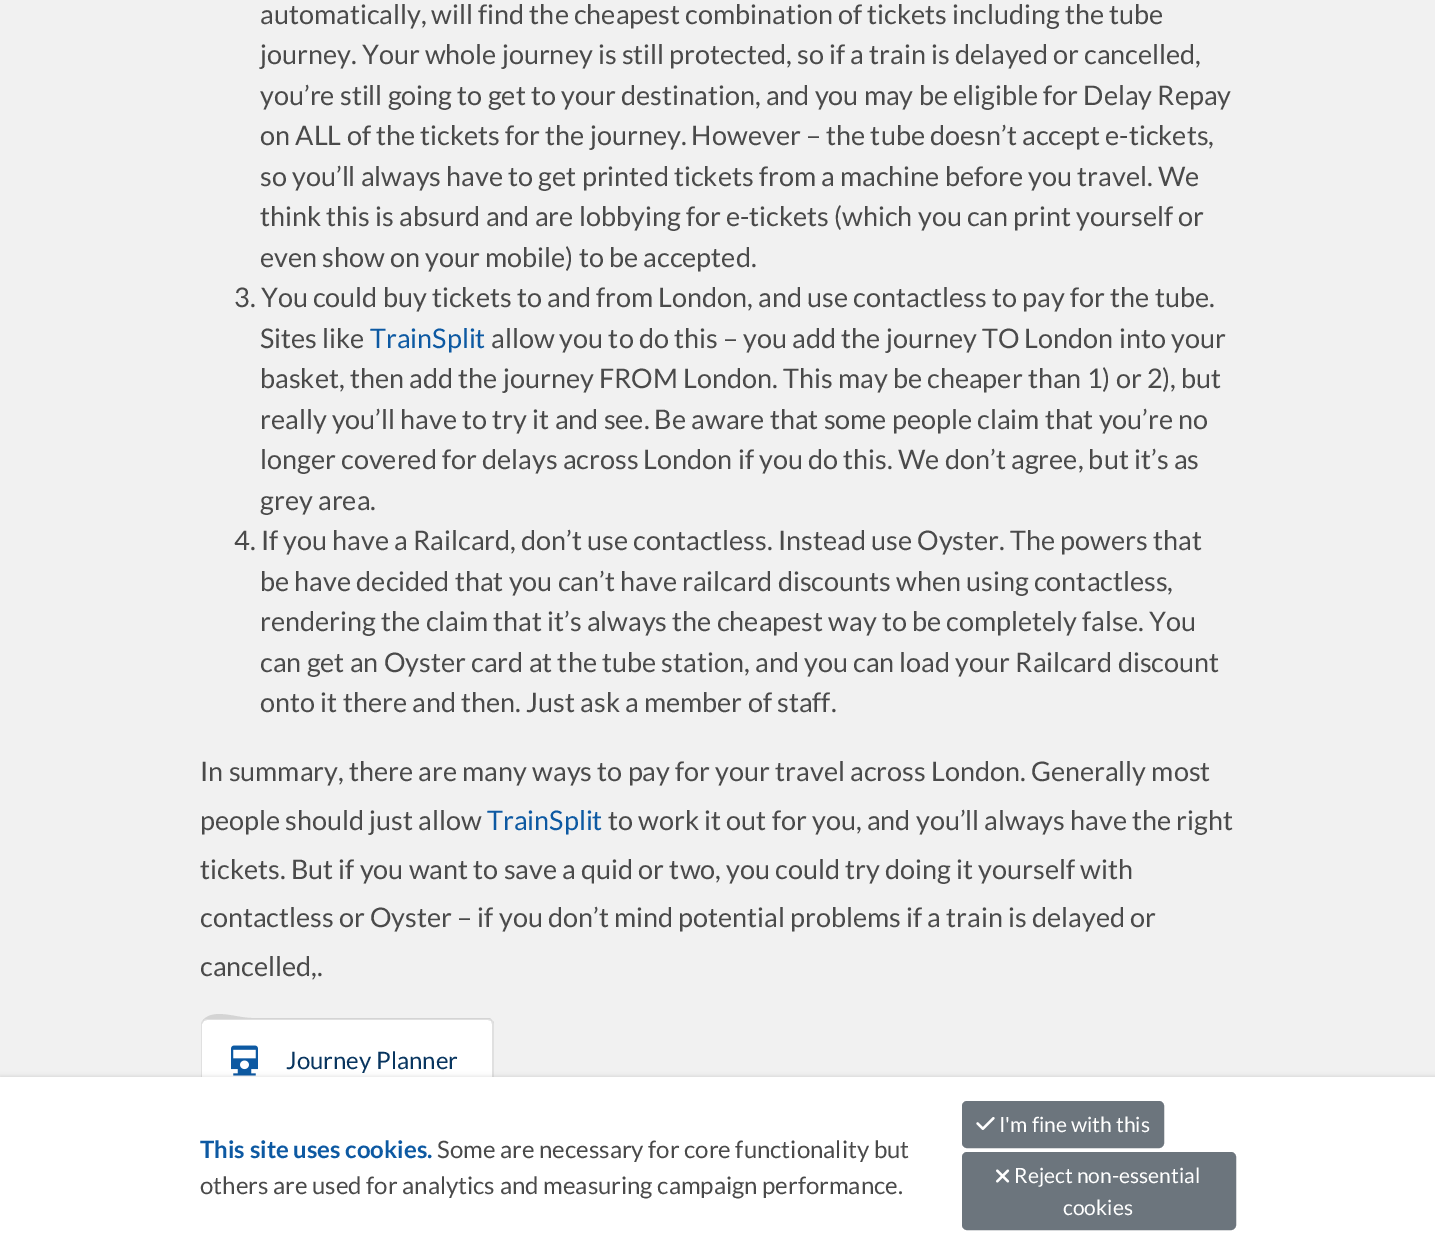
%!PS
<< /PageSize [1435 1258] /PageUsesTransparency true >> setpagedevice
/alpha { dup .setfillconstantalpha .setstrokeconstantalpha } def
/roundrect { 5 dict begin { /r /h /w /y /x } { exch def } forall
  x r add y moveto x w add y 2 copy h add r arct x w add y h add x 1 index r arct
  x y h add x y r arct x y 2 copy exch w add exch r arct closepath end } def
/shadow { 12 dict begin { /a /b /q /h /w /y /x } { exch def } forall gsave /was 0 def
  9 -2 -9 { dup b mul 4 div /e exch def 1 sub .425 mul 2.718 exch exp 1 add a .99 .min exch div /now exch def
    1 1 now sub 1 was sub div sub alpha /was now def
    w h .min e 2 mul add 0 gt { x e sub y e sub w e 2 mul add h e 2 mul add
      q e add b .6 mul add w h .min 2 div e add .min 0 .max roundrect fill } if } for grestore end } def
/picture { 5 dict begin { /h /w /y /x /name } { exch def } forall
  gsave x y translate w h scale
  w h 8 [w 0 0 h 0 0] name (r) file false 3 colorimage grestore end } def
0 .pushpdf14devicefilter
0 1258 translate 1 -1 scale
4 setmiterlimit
0.945 setgray
0 0 1435 1258 rectfill
/Lato-Regular [27 0 0 -27 0 0] selectfont
0.29 setgray
260 24 moveto (automatically, will find the cheapest combination of tickets including the tube) show
260 64 moveto (journey. Your whole journey is still protected, so if a train is delayed or cancelled,) show
260 105 moveto (you’re still going to get to your destination, and you may be eligible for Delay Repay) show
260 145 moveto (on ALL of the tickets for the journey. However – the tube doesn’t accept e-tickets,) show
260 186 moveto (so you’ll always have to get printed tickets from a machine before you travel. We) show
260 226 moveto (think this is absurd and are lobbying for e-tickets \(which you can print yourself or) show
260 267 moveto (even show on your mobile\) to be accepted.) show
234 307 moveto (3. You could buy tickets to and from London, and use contactless to pay for the tube.) show
260 348 moveto (Sites like) show
0.051 0.349 0.635 setrgbcolor
370 348 moveto (TrainSplit) show
0.29 setgray
491 348 moveto (allow you to do this – you add the journey TO London into your) show
260 388 moveto (basket, then add the journey FROM London. This may be cheaper than 1\) or 2\), but) show
260 429 moveto (really you’ll have to try it and see. Be aware that some people claim that you’re no) show
260 469 moveto (longer covered for delays across London if you do this. We don’t agree, but it’s as) show
260 510 moveto (grey area.) show
234 550 moveto (4. If you have a Railcard, don’t use contactless. Instead use Oyster. The powers that) show
260 591 moveto (be have decided that you can’t have railcard discounts when using contactless,) show
260 631 moveto (rendering the claim that it’s always the cheapest way to be completely false. You) show
260 672 moveto (can get an Oyster card at the tube station, and you can load your Railcard discount) show
260 712 moveto (onto it there and then. Just ask a member of staff.) show
200 781 moveto (In summary, there are many ways to pay for your travel across London. Generally most) show
200 830 moveto (people should just allow) show
0.051 0.349 0.635 setrgbcolor
487 830 moveto (TrainSplit) show
0.29 setgray
608 830 moveto (to work it out for you, and you’ll always have the right) show
200 879 moveto (tickets. But if you want to save a quid or two, you could try doing it yourself with) show
200 927 moveto (contactless or Oyster – if you don’t mind potential problems if a train is delayed or) show
200 976 moveto (cancelled,.) show
1 setgray
newpath 207 1019 moveto 488 1019 lineto 491.5 1019 494 1021.5 494 1025 curveto 494 1103 lineto 201 1103 lineto 201 1025 lineto 201 1021.5 203.5 1019 207 1019 curveto closepath fill
0.12 alpha
0 setgray
newpath 207 1020 moveto 204 1021 lineto 203 1020 lineto 214 1008 236 1018 252 1018 curveto 490 1018 lineto 492 1020 lineto 491 1021 lineto 488 1020 lineto closepath fill
newpath 494 1102 moveto 492 1101 lineto 492 1024 lineto 491 1021 lineto 492 1020 lineto 494 1022 lineto closepath fill
newpath 201 1024 moveto 201 1102 lineto 202 1102 lineto 202 1101 lineto 202 1024 lineto 204 1021 lineto 203 1020 lineto 202 1021 201 1023 201 1024 curveto closepath fill
1 alpha
(img1.rgb) 231 1045 27 31 picture
/Lato-Regular [24 0 0 -24 0 0] selectfont
0.031 0.208 0.373 setrgbcolor
286 1069 moveto (Journey Planner) show
0 setgray
0 1076 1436 181 0 2 0.1 shadow
1 setgray
0 1077 1435 181 rectfill
/Lato-Bold [24 0 0 -24 0 0] selectfont
0.051 0.349 0.635 setrgbcolor
200 1158 moveto (This site uses cookies.) show
/Lato-Regular [24 0 0 -24 0 0] selectfont
0.29 setgray
437 1158 moveto (Some are necessary for core functionality but) show
200 1194 moveto (others are used for analytics and measuring campaign performance.) show
0.424 0.459 0.49 setrgbcolor
963 1102 200 45 4 roundrect gsave fill grestore
2 setlinewidth
stroke
(img2.rgb) 976 1117 19 13 picture
/Lato-Regular [21 0 0 -21 0 0] selectfont
1 setgray
999 1132 moveto (I'm fine with this) show
0.424 0.459 0.49 setrgbcolor
963 1153 272 76 4 roundrect gsave fill grestore
stroke
(img3.rgb) 996 1169 14 14 picture
1 setgray
1014 1183 moveto (Reject non-essential) show
1063 1215 moveto (cookies) show
.poppdf14devicefilter showpage
